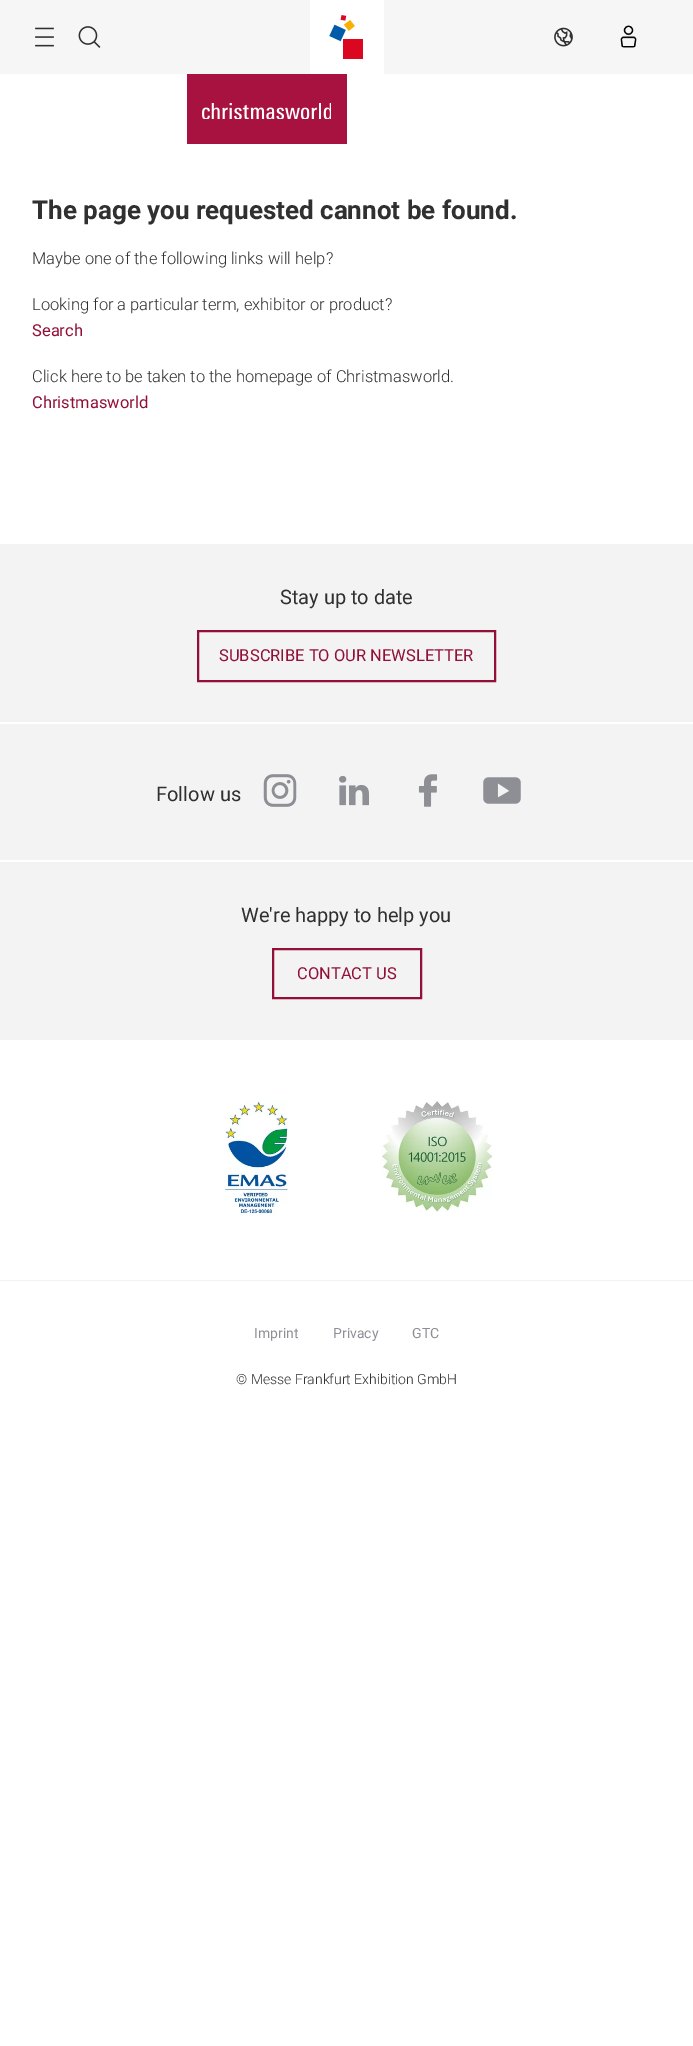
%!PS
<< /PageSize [693 2046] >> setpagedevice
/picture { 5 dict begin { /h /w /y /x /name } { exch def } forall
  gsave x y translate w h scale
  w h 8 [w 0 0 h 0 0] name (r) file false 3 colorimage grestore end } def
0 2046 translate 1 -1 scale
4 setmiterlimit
1 setgray
0 0 693 2046 rectfill
0.965 setgray
0 0 693 74 rectfill
(img1.rgb) 35 27 19 20 picture
(img2.rgb) 78 26 23 22 picture
1 setgray
310 0 74 74 rectfill
(img3.rgb) 329 15 34 44 picture
(img4.rgb) 554 27 19 20 picture
(img5.rgb) 620 25 17 23 picture
0.659 0.071 0.251 setrgbcolor
187 74 160 70 rectfill
(img6.rgb) 202 103 129 16 picture
/Roboto-Bold [26 0 0 -26 0 0] selectfont
0.188 setgray
32 219 moveto (The page you requested cannot be found.) show
/Roboto-Light [16.5 0 0 -16.5 0 0] selectfont
32 264 moveto (Maybe one of the following links will help?) show
32 310 moveto (Looking for a particular term, exhibitor or product?) show
/Roboto-Regular [16.5 0 0 -16.5 0 0] selectfont
0.573 0.063 0.22 setrgbcolor
32 336 moveto (Search) show
/Roboto-Light [16.5 0 0 -16.5 0 0] selectfont
0.188 setgray
32 382 moveto (Click here to be taken to the homepage of Christmasworld.) show
/Roboto-Regular [16.5 0 0 -16.5 0 0] selectfont
0.573 0.063 0.22 setrgbcolor
32 408 moveto (Christmasworld) show
0.953 setgray
0 544 693 178 rectfill
/Roboto-Regular [20 0 0 -20 0 0] selectfont
0.188 setgray
280 604 moveto (Stay up to date) show
0.573 0.063 0.22 setrgbcolor
2 setlinewidth
198 631 297 50 rectstroke
/Roboto-Regular [16.5 0 0 -16.5 0 0] selectfont
219 661 moveto (SUBSCRIBE TO OUR NEWSLETTER) show
0.953 setgray
0 724 693 136 rectfill
/Roboto-Regular [20 0 0 -20 0 0] selectfont
0.188 setgray
156 801 moveto (Follow us) show
(img7.rgb) 263 774 34 33 picture
(img8.rgb) 339 775 30 31 picture
(img9.rgb) 418 774 20 33 picture
(img10.rgb) 483 777 38 27 picture
0.953 setgray
0 862 693 178 rectfill
0.188 setgray
241 922 moveto (We're happy to help you) show
0.573 0.063 0.22 setrgbcolor
273 949 148 49 rectstroke
/Roboto-Regular [16.5 0 0 -16.5 0 0] selectfont
297 979 moveto (CONTACT US) show
(img11.rgb) 225 1100 63 116 picture
(img12.rgb) 381 1101 112 111 picture
0.953 setgray
0 1280 693 1 rectfill
/Roboto-Regular [14 0 0 -14 0 0] selectfont
0.553 0.561 0.584 setrgbcolor
254 1338 moveto (Imprint) show
333 1338 moveto (Privacy) show
412 1338 moveto (GTC) show
/Roboto-Light [14 0 0 -14 0 0] selectfont
0.188 setgray
236 1384 moveto (© Messe Frankfurt Exhibition GmbH) show
showpage
